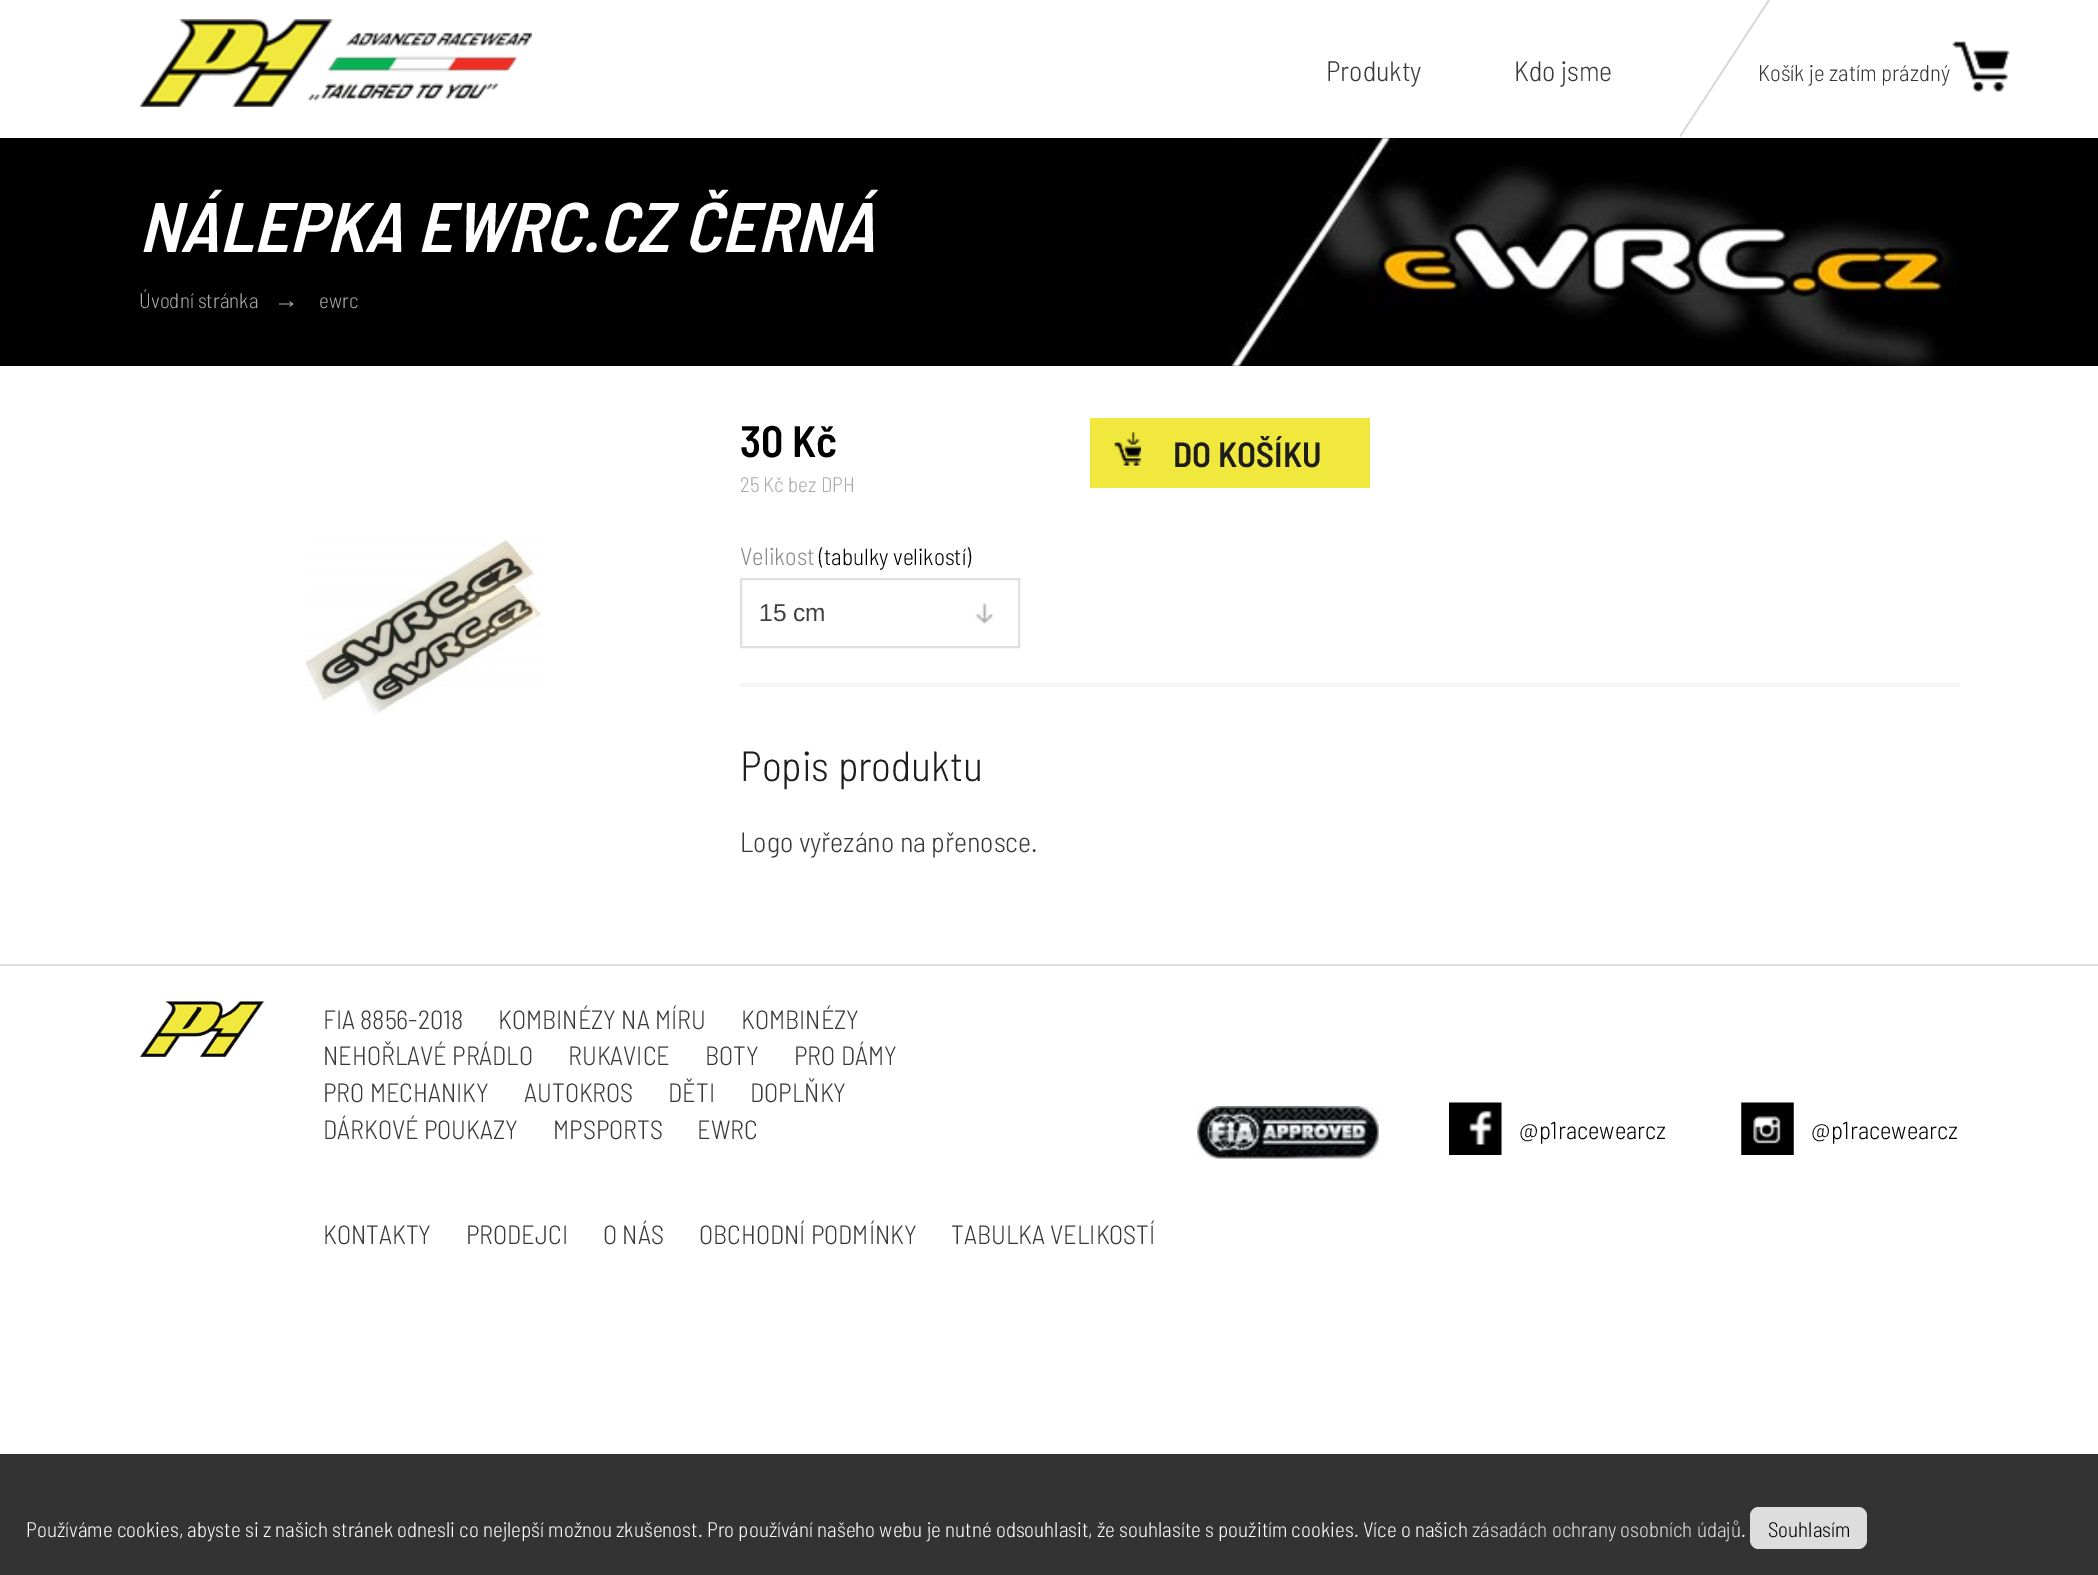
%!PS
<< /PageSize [2098 1575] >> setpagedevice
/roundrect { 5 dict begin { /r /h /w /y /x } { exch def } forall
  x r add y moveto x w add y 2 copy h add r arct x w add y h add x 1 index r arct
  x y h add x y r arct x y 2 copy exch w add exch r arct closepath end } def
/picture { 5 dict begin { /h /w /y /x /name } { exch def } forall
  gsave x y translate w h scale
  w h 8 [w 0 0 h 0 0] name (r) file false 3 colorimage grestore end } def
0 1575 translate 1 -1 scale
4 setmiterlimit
1 setgray
0 0 2098 1575 rectfill
(img1.rgb) 140 19 392 88 picture
/BarlowSemiCondensed-Light [28 0 0 -28 0 0] selectfont
0.22 setgray
1326 81 moveto (Produkty) show
1514 81 moveto (Kdo jsme) show
/BarlowSemiCondensed-Light [22.75 0 0 -22.75 0 0] selectfont
1758 81 moveto (Košík je zatím prázdný) show
gsave
1680 0 333 138 rectclip
0.847 setgray
newpath 1768 0 moveto 1770 0 lineto 1680 138 lineto 1678 138 lineto closepath fill
grestore
(img2.rgb) 1952 41 58 51 picture
0 setgray
0 138 2098 228 rectfill
(img3.rgb) 1231 138 728 228 picture
/BarlowSemiCondensed-SemiBoldItalic [70 0 0 -70 0 0] selectfont
1 setgray
139 252 moveto (NÁLEPKA EWRC.CZ ČERNÁ) show
/BarlowSemiCondensed-Light [21 0 0 -21 0 0] selectfont
0.663 setgray
139 308 moveto (Úvodní stránka) show
/LiberationSans-Bold [24.5 0 0 -24.5 0 0] selectfont
274 308 moveto (→) show
/BarlowSemiCondensed-Light [21 0 0 -21 0 0] selectfont
319 308 moveto (ewrc) show
(img4.rgb) 305 538 240 177 picture
/BarlowSemiCondensed-SemiBold [44 0 0 -44 0 0] selectfont
0 setgray
740 457 moveto (30 Kč) show
/BarlowSemiCondensed-Light [21 0 0 -21 0 0] selectfont
0.663 setgray
740 492 moveto (25 Kč bez DPH) show
0.941 0.91 0.235 setrgbcolor
1090 418 280 70 rectfill
(img5.rgb) 1114 432 27 34 picture
/BarlowSemiCondensed-SemiBold [35 0 0 -35 0 0] selectfont
0.114 setgray
1173 467 moveto (DO KOŠÍKU) show
/BarlowSemiCondensed-Light [24.5 0 0 -24.5 0 0] selectfont
0.533 setgray
740 565 moveto (Velikost) show
/BarlowSemiCondensed-Light [23.25 0 0 -23.25 0 0] selectfont
0 setgray
819 565 moveto (\(tabulky velikostí\)) show
(img6.rgb) 975 603 18 21 picture
0.878 setgray
2 setlinewidth
741 579 278 68 rectstroke
/LiberationSans-Regular [24.5 0 0 -24.5 0 0] selectfont
0.251 setgray
759 621 moveto (15 cm) show
0.961 setgray
740 683 1220 4 rectfill
/BarlowSemiCondensed-Light [42 0 0 -42 0 0] selectfont
0.114 setgray
740 781 moveto (Popis produktu) show
/BarlowSemiCondensed-Light [28 0 0 -28 0 0] selectfont
0.22 setgray
740 852 moveto (Logo vyřezáno na přenosce.) show
0.878 setgray
0 964 2098 2 rectfill
(img7.rgb) 140 1001 125 56 picture
/BarlowSemiCondensed-Light [26.25 0 0 -26.25 0 0] selectfont
0.22 setgray
323 1029 moveto (FIA 8856-2018) show
498 1029 moveto (KOMBINÉZY NA MÍRU) show
741 1029 moveto (KOMBINÉZY) show
323 1065 moveto (NEHOŘLAVÉ PRÁDLO) show
568 1065 moveto (RUKAVICE) show
705 1065 moveto (BOTY) show
794 1065 moveto (PRO DÁMY) show
323 1102 moveto (PRO MECHANIKY) show
524 1102 moveto (AUTOKROS) show
668 1102 moveto (DĚTI) show
750 1102 moveto (DOPLŇKY) show
323 1139 moveto (DÁRKOVÉ POUKAZY) show
553 1139 moveto (MPSPORTS) show
697 1139 moveto (EWRC) show
(img8.rgb) 1197 1106 182 53 picture
(img9.rgb) 1449 1102 53 53 picture
/BarlowSemiCondensed-Light [24.5 0 0 -24.5 0 0] selectfont
0 setgray
1519 1139 moveto (@p1racewearcz) show
(img10.rgb) 1741 1102 53 53 picture
1811 1139 moveto (@p1racewearcz) show
/BarlowSemiCondensed-Light [26.25 0 0 -26.25 0 0] selectfont
0.22 setgray
323 1244 moveto (KONTAKTY) show
466 1244 moveto (PRODEJCI) show
603 1244 moveto (O NÁS) show
699 1244 moveto (OBCHODNÍ PODMÍNKY) show
951 1244 moveto (TABULKA VELIKOSTÍ) show
0.2 setgray
0 1454 2098 121 rectfill
/BarlowSemiCondensed-Light [21 0 0 -21 0 0] selectfont
1 setgray
26 1537 moveto (Používáme cookies, abyste si z našich stránek odnesli co nejlepší možnou zkušenost. Pro používání našeho webu je nutné odsouhlasit, že souhlasíte s použitím cookies. Více o našich) show
0.867 setgray
1472 1537 moveto (zásadách ochrany osobních údajů) show
1 setgray
1741 1537 moveto (.) show
0.867 setgray
1750 1507 117 42 9 roundrect fill
0 setgray
1768 1537 moveto (Souhlasím) show
showpage
